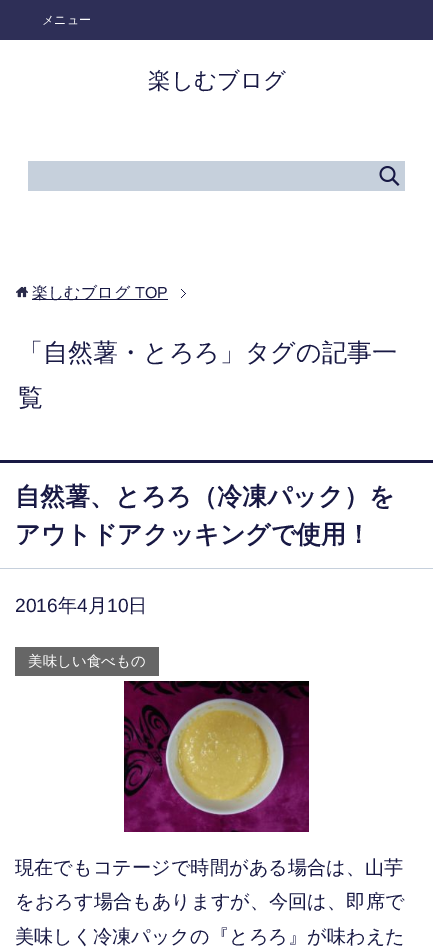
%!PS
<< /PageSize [433 948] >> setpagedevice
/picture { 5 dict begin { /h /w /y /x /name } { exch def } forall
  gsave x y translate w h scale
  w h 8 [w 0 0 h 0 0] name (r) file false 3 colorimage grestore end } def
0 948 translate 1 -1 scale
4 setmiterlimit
1 setgray
0 0 433 948 rectfill
0.18 0.184 0.341 setrgbcolor
0 0 433 40 rectfill
/WenQuanYiZenHei-Medium [12 0 0 -12 0 0] selectfont
1 setgray
42 24 moveto (メニュー) show
/WenQuanYiZenHei-Medium [22.5 0 0 -22.5 0 0] selectfont
0.094 0.098 0.267 setrgbcolor
148 88 moveto (楽しむブログ) show
0.776 0.816 0.863 setrgbcolor
28 161 377 30 rectfill
(img1.rgb) 379 166 21 20 picture
(img2.rgb) 181 289 5 9 picture
(img3.rgb) 16 286 12 12 picture
0.09 0.094 0.267 setrgbcolor
32 299 98 1 rectfill
/WenQuanYiZenHei-Medium [16 0 0 -16 0 0] selectfont
0.094 0.098 0.267 setrgbcolor
32 298 moveto (楽しむブログ) show
0.09 0.094 0.267 setrgbcolor
130 299 38 1 rectfill
/LiberationSans-Regular [16 0 0 -16 0 0] selectfont
0.094 0.098 0.267 setrgbcolor
135 298 moveto (TOP) show
/WenQuanYiZenHei-Medium [25 0 0 -25 0 0] selectfont
18 361 moveto (「自然薯・とろろ」タグの記事一) show
18 406 moveto (覧) show
0 460 433 3 rectfill
0.776 0.816 0.863 setrgbcolor
0 568 433 1 rectfill
/WenQuanYiZenHei-Bold [25 0 0 -25 0 0] selectfont
0.094 0.098 0.267 setrgbcolor
15 505 moveto (自然薯、とろろ（冷凍パック）を) show
15 543 moveto (アウトドアクッキングで使用！) show
/LiberationSans-Regular [19.2 0 0 -19.2 0 0] selectfont
15 612 moveto (2016) show
/WenQuanYiZenHei-Medium [19.2 0 0 -19.2 0 0] selectfont
58 612 moveto (年) show
/LiberationSans-Regular [19.2 0 0 -19.2 0 0] selectfont
77 612 moveto (4) show
/WenQuanYiZenHei-Medium [19.2 0 0 -19.2 0 0] selectfont
88 612 moveto (月) show
/LiberationSans-Regular [19.2 0 0 -19.2 0 0] selectfont
107 612 moveto (10) show
/WenQuanYiZenHei-Medium [19.2 0 0 -19.2 0 0] selectfont
128 612 moveto (日) show
0.4 setgray
15 647 144 29 rectfill
/WenQuanYiZenHei-Medium [14.5 0 0 -14.5 0 0] selectfont
1 setgray
28 666 moveto (美味しい食べもの) show
(img4.rgb) 124 681 185 151 picture
/WenQuanYiZenHei-Medium [19.2 0 0 -19.2 0 0] selectfont
0.094 0.098 0.267 setrgbcolor
15 874 moveto (現在でもコテージで時間がある場合は、山芋) show
15 908 moveto (をおろす場合もありますが、今回は、即席で) show
15 943 moveto (美味しく冷凍パックの『とろろ』が味わえた) show
showpage
